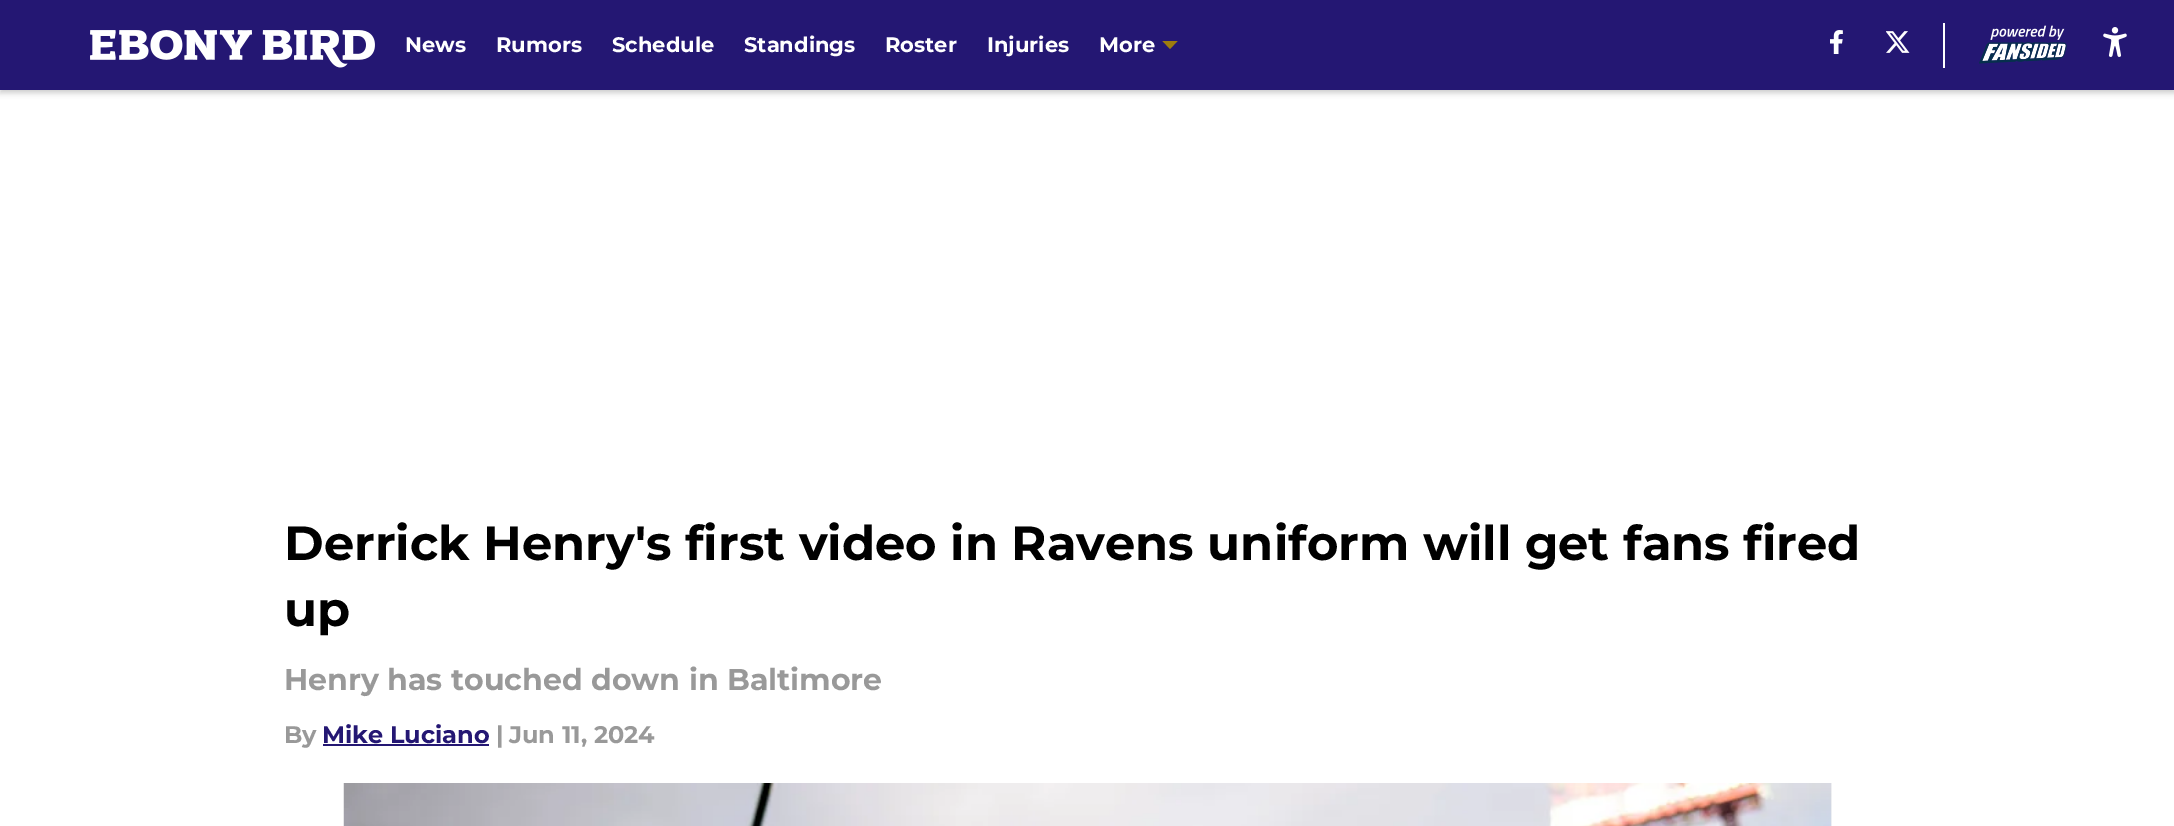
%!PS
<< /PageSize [2174 826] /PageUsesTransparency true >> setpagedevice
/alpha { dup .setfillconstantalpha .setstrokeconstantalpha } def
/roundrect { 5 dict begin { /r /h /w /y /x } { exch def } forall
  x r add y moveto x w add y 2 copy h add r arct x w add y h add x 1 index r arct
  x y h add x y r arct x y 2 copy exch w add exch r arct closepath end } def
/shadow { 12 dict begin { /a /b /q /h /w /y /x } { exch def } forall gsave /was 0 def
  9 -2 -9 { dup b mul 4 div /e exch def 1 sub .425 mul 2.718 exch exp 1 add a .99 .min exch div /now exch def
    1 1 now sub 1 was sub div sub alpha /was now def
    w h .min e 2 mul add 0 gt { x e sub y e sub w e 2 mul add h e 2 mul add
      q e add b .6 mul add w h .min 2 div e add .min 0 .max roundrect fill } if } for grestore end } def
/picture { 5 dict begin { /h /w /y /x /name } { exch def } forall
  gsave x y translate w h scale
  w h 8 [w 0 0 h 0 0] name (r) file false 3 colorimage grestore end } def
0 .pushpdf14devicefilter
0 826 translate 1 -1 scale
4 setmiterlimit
1 setgray
0 0 2174 826 rectfill
0 setgray
0 3 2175 90 0 3 0.2 shadow
0.141 0.09 0.451 setrgbcolor
0 0 2174 90 rectfill
(img1.rgb) 90 30 285 38 picture
/Montserrat-Thin [21 0 0 -21 0 0] selectfont
1 setgray
405 52 moveto (News) show
496 52 moveto (Rumors) show
612 52 moveto (Schedule) show
744 52 moveto (Standings) show
885 52 moveto (Roster) show
987 52 moveto (Injuries) show
1099 52 moveto (More) show
0.62 0.486 0.047 setrgbcolor
newpath 1162.5 41 moveto 1170 49 lineto 1177.5 41 lineto closepath eofill
(img2.rgb) 1830 30 13 24 picture
(img3.rgb) 1886 31 24 22 picture
1 setgray
1943 23 2 45 rectfill
(img4.rgb) 1979 25 88 39 picture
(img5.rgb) 2103 27 24 30 picture
/Montserrat-Thin [48 0 0 -48 0 0] selectfont
0 setgray
284 560 moveto (Derrick Henry's first video in Ravens uniform will get fans fired) show
284 626 moveto (up) show
/Montserrat-Thin [30 0 0 -30 0 0] selectfont
0.6 setgray
284 690 moveto (Henry has touched down in Baltimore) show
/Montserrat-Thin [24 0 0 -24 0 0] selectfont
284 743 moveto (By) show
0.141 0.09 0.451 setrgbcolor
322 743 moveto (Mike Luciano) show
323 744 166 2 rectfill
0.6 setgray
496 743 moveto (|) show
509 743 moveto (Jun 11, 2024) show
0.969 setgray
1831 783 1 43 rectfill
(img6.rgb) 343 783 1489 43 picture
.poppdf14devicefilter showpage
